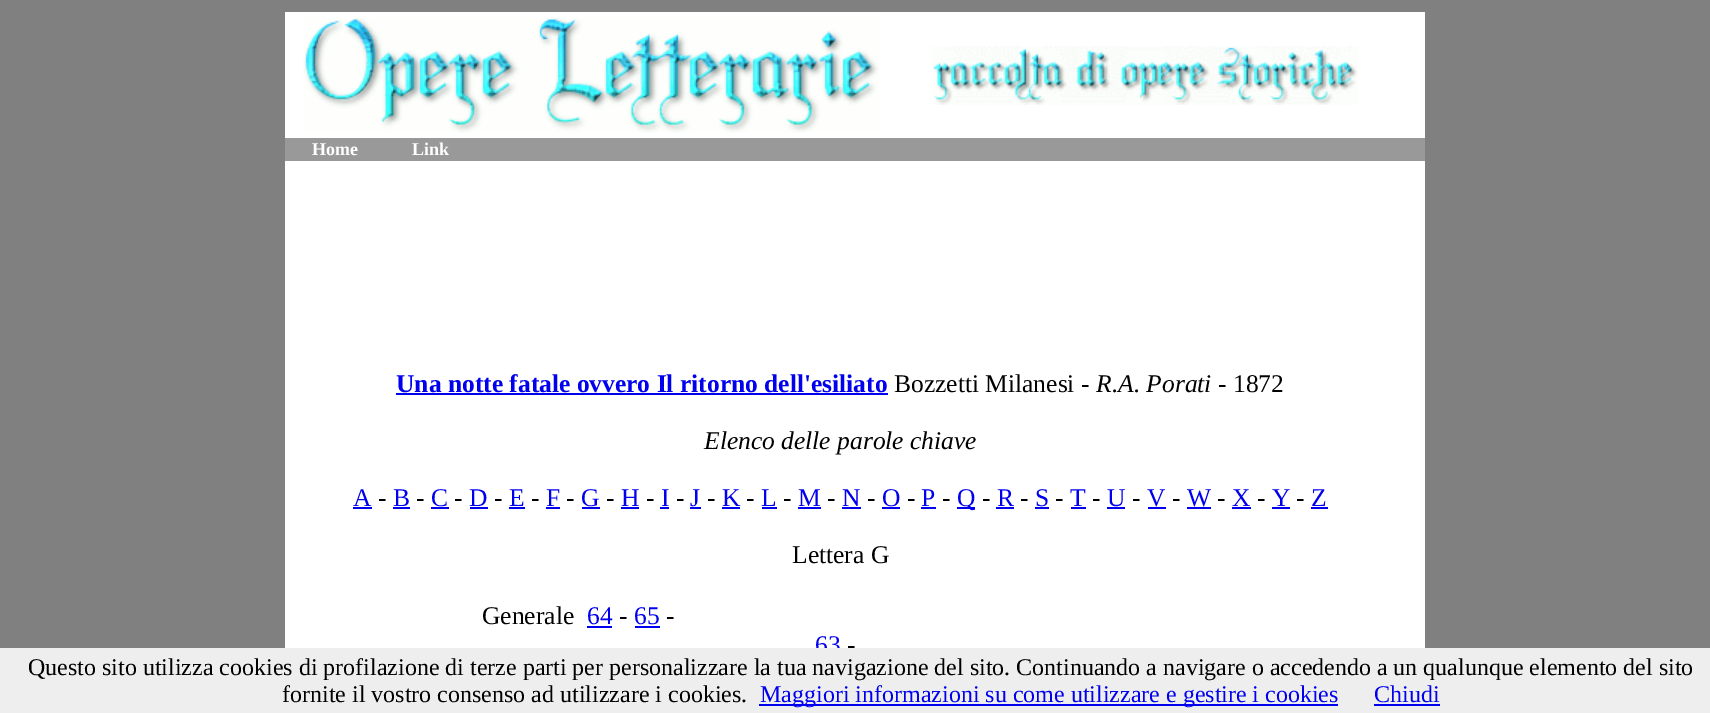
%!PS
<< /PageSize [1710 713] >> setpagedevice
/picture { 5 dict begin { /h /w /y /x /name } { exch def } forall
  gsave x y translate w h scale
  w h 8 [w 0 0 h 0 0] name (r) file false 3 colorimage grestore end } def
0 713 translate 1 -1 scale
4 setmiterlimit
0.502 setgray
0 0 1710 713 rectfill
1 setgray
285 12 1140 636 rectfill
(img1.rgb) 303 17 576 116 picture
(img2.rgb) 932 46 426 59 picture
0.6 setgray
285 138 1140 23 rectfill
/LiberationSerif-Bold [18 0 0 -18 0 0] selectfont
1 setgray
312 155 moveto (Home) show
412 155 moveto (Link) show
/LiberationSerif-Bold [25.5 0 0 -25.5 0 0] selectfont
0 0 0.933 setrgbcolor
396 392 moveto (Una notte fatale ovvero Il ritorno dell'esiliato) show
396 393 492 2 rectfill
/LiberationSerif-Regular [25.5 0 0 -25.5 0 0] selectfont
0 setgray
894 392 moveto (Bozzetti Milanesi -) show
/LiberationSerif-Italic [25.5 0 0 -25.5 0 0] selectfont
1096 392 moveto (R.A. Porati) show
/LiberationSerif-Regular [25.5 0 0 -25.5 0 0] selectfont
1218 392 moveto (- 1872) show
/LiberationSerif-Italic [25.5 0 0 -25.5 0 0] selectfont
704 449 moveto (Elenco delle parole chiave) show
/LiberationSerif-Regular [25.5 0 0 -25.5 0 0] selectfont
0 0 0.933 setrgbcolor
353 506 moveto (A) show
353 507 19 2 rectfill
0 setgray
378 506 moveto (-) show
0 0 0.933 setrgbcolor
393 506 moveto (B) show
393 507 17 2 rectfill
0 setgray
416 506 moveto (-) show
0 0 0.933 setrgbcolor
431 506 moveto (C) show
431 507 18 2 rectfill
0 setgray
454 506 moveto (-) show
0 0 0.933 setrgbcolor
469 506 moveto (D) show
470 507 18 2 rectfill
0 setgray
494 506 moveto (-) show
0 0 0.933 setrgbcolor
509 506 moveto (E) show
509 507 16 2 rectfill
0 setgray
531 506 moveto (-) show
0 0 0.933 setrgbcolor
546 506 moveto (F) show
546 507 14 2 rectfill
0 setgray
566 506 moveto (-) show
0 0 0.933 setrgbcolor
581 506 moveto (G) show
582 507 18 2 rectfill
0 setgray
606 506 moveto (-) show
0 0 0.933 setrgbcolor
621 506 moveto (H) show
621 507 18 2 rectfill
0 setgray
646 506 moveto (-) show
0 0 0.933 setrgbcolor
661 506 moveto (I) show
660 507 9 2 rectfill
0 setgray
676 506 moveto (-) show
0 0 0.933 setrgbcolor
690 506 moveto (J) show
690 507 11 2 rectfill
0 setgray
707 506 moveto (-) show
0 0 0.933 setrgbcolor
722 506 moveto (K) show
722 507 18 2 rectfill
0 setgray
746 506 moveto (-) show
0 0 0.933 setrgbcolor
761 506 moveto (L) show
762 507 15 2 rectfill
0 setgray
783 506 moveto (-) show
0 0 0.933 setrgbcolor
798 506 moveto (M) show
798 507 23 2 rectfill
0 setgray
827 506 moveto (-) show
0 0 0.933 setrgbcolor
842 506 moveto (N) show
842 507 19 2 rectfill
0 setgray
867 506 moveto (-) show
0 0 0.933 setrgbcolor
882 506 moveto (O) show
882 507 18 2 rectfill
0 setgray
907 506 moveto (-) show
0 0 0.933 setrgbcolor
921 506 moveto (P) show
921 507 15 2 rectfill
0 setgray
942 506 moveto (-) show
0 0 0.933 setrgbcolor
957 507 18 2 rectfill
957 506 moveto (Q) show
0 setgray
982 506 moveto (-) show
0 0 0.933 setrgbcolor
997 506 moveto (R) show
996 507 18 2 rectfill
0 setgray
1020 506 moveto (-) show
0 0 0.933 setrgbcolor
1035 506 moveto (S) show
1035 507 14 2 rectfill
0 setgray
1055 506 moveto (-) show
0 0 0.933 setrgbcolor
1070 506 moveto (T) show
1071 507 15 2 rectfill
0 setgray
1092 506 moveto (-) show
0 0 0.933 setrgbcolor
1107 506 moveto (U) show
1107 507 18 2 rectfill
0 setgray
1132 506 moveto (-) show
0 0 0.933 setrgbcolor
1147 506 moveto (V) show
1148 507 18 2 rectfill
0 setgray
1172 506 moveto (-) show
0 0 0.933 setrgbcolor
1187 506 moveto (W) show
1187 507 24 2 rectfill
0 setgray
1217 506 moveto (-) show
0 0 0.933 setrgbcolor
1232 506 moveto (X) show
1232 507 19 2 rectfill
0 setgray
1257 506 moveto (-) show
0 0 0.933 setrgbcolor
1272 506 moveto (Y) show
1272 507 18 2 rectfill
0 setgray
1296 506 moveto (-) show
0 0 0.933 setrgbcolor
1311 506 moveto (Z) show
1311 507 17 2 rectfill
0 setgray
792 563 moveto (Lettera G) show
482 624 moveto (Generale) show
0 0 0.933 setrgbcolor
587 624 moveto (64) show
587 626 25 2 rectfill
0 setgray
619 624 moveto (-) show
0 0 0.933 setrgbcolor
634 624 moveto (65) show
635 626 25 2 rectfill
0 setgray
666 624 moveto (-) show
0 0 0.933 setrgbcolor
815 653 moveto (63) show
0 setgray
847 653 moveto (-) show
0.933 setgray
0 648 1710 65 rectfill
/LiberationSerif-Regular [24 0 0 -24 0 0] selectfont
0 setgray
28 675 moveto (Questo sito utilizza cookies di profilazione di terze parti per personalizzare la tua navigazione del sito. Continuando a navigare o accedendo a un qualunque elemento del sito) show
282 702 moveto (fornite il vostro consenso ad utilizzare i cookies.) show
0 0 0.933 setrgbcolor
759 704 579 2 rectfill
760 702 moveto (Maggiori informazioni su come utilizzare e gestire i cookies) show
1374 702 moveto (Chiudi) show
1374 704 66 2 rectfill
showpage
